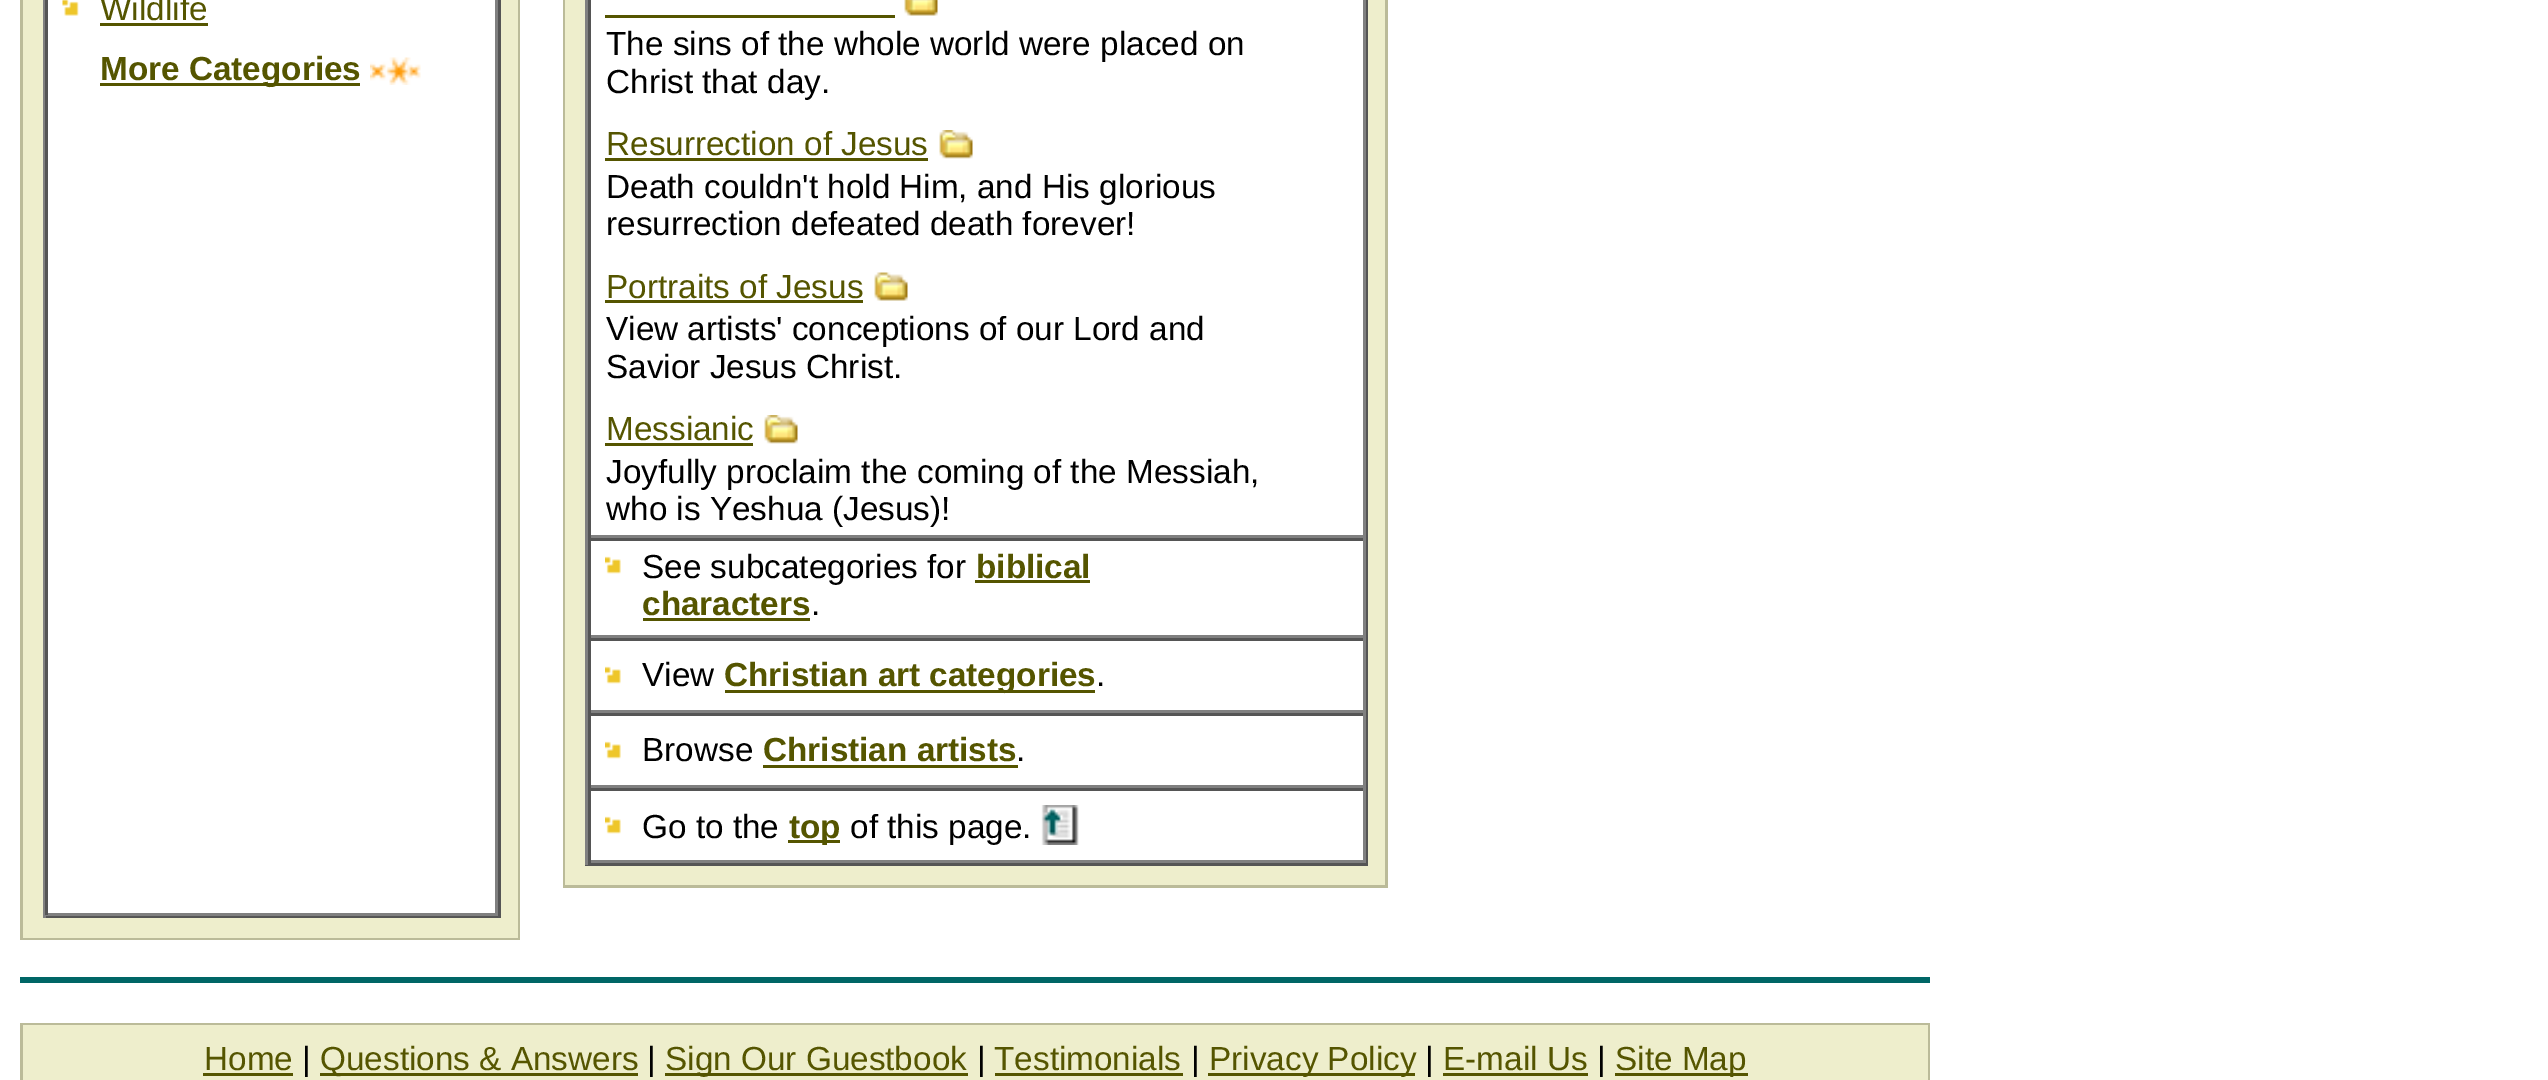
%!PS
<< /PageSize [2548 1080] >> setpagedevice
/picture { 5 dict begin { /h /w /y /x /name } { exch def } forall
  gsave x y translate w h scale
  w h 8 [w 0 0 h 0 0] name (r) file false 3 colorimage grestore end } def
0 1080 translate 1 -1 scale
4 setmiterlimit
1 setgray
0 0 2548 1080 rectfill
0.733 0.733 0.6 setrgbcolor
20 0 500 940 rectfill
0.933 0.933 0.8 setrgbcolor
23 0 495 938 rectfill
0.333 setgray
498 0 3 918 rectfill
43 915 457 3 rectfill
0.502 setgray
43 0 3 918 rectfill
1 setgray
48 0 447 913 rectfill
0.502 setgray
495 0 3 915 rectfill
45 913 453 3 rectfill
0.333 setgray
45 0 3 915 rectfill
(img1.rgb) 62 0 17 16 picture
/LiberationSans-Regular [33.3 0 0 -33.3 0 0] selectfont
0.333 0.333 0 setrgbcolor
100 20 moveto (Wildlife) show
100 23 108 3 rectfill
100 83 260 3 rectfill
/LiberationSans-Bold [33.3 0 0 -33.3 0 0] selectfont
100 80 moveto (More Categories) show
(img2.rgb) 370 57 51 28 picture
0.733 0.733 0.6 setrgbcolor
563 0 825 888 rectfill
0.933 0.933 0.8 setrgbcolor
565 0 820 885 rectfill
1 setgray
591 0 772 860 rectfill
0.333 setgray
1366 0 2 865 rectfill
585 863 783 3 rectfill
0.502 setgray
585 0 3 865 rectfill
1363 0 3 538 rectfill
588 535 777 3 rectfill
0.333 setgray
588 0 3 538 rectfill
(img3.rgb) 904 0 34 16 picture
0.333 0.333 0 setrgbcolor
605 15 290 3 rectfill
/LiberationSans-Regular [33.3 0 0 -33.3 0 0] selectfont
0 setgray
606 55 moveto (The sins of the whole world were placed on) show
606 93 moveto (Christ that day.) show
0.333 0.333 0 setrgbcolor
606 155 moveto (Resurrection of Jesus) show
605 158 323 3 rectfill
(img4.rgb) 939 130 34 29 picture
0 setgray
606 198 moveto (Death couldn't hold Him, and His glorious) show
606 235 moveto (resurrection defeated death forever!) show
0.333 0.333 0 setrgbcolor
606 298 moveto (Portraits of Jesus) show
605 300 258 3 rectfill
(img5.rgb) 874 272 34 29 picture
0 setgray
606 340 moveto (View artists' conceptions of our Lord and) show
606 378 moveto (Savior Jesus Christ.) show
0.333 0.333 0 setrgbcolor
606 440 moveto (Messianic) show
605 443 148 3 rectfill
(img6.rgb) 764 415 34 29 picture
0 setgray
606 483 moveto (Joyfully proclaim the coming of the Messiah,) show
606 520 moveto (who is Yeshua \(Jesus\)!) show
0.333 setgray
588 538 777 3 rectfill
0.502 setgray
1363 538 3 100 rectfill
588 635 777 3 rectfill
0.333 setgray
588 538 3 100 rectfill
(img7.rgb) 605 556 16 18 picture
0 setgray
642 578 moveto (See subcategories for) show
/LiberationSans-Bold [33.3 0 0 -33.3 0 0] selectfont
0.333 0.333 0 setrgbcolor
976 578 moveto (biblical) show
975 580 115 3 rectfill
642 615 moveto (characters) show
643 618 167 3 rectfill
/LiberationSans-Regular [33.3 0 0 -33.3 0 0] selectfont
0 setgray
811 615 moveto (.) show
0.333 setgray
588 638 777 3 rectfill
0.502 setgray
1363 638 3 75 rectfill
588 710 777 3 rectfill
0.333 setgray
588 638 3 75 rectfill
(img7.rgb) 605 666 16 18 picture
0 setgray
642 686 moveto (View) show
0.333 0.333 0 setrgbcolor
725 690 370 3 rectfill
/LiberationSans-Bold [33.3 0 0 -33.3 0 0] selectfont
724 686 moveto (Christian art categories) show
/LiberationSans-Regular [33.3 0 0 -33.3 0 0] selectfont
0 setgray
1096 686 moveto (.) show
0.333 setgray
588 713 777 3 rectfill
0.502 setgray
1363 713 3 75 rectfill
588 785 777 3 rectfill
0.333 setgray
588 713 3 75 rectfill
(img7.rgb) 605 741 16 18 picture
0 setgray
642 761 moveto (Browse) show
/LiberationSans-Bold [33.3 0 0 -33.3 0 0] selectfont
0.333 0.333 0 setrgbcolor
763 761 moveto (Christian artists) show
763 765 255 3 rectfill
/LiberationSans-Regular [33.3 0 0 -33.3 0 0] selectfont
0 setgray
1016 761 moveto (.) show
0.333 setgray
588 788 777 3 rectfill
0.502 setgray
1363 788 3 75 rectfill
588 860 777 3 rectfill
0.333 setgray
588 788 3 75 rectfill
(img7.rgb) 605 816 16 18 picture
0 setgray
642 838 moveto (Go to the) show
0.333 0.333 0 setrgbcolor
788 840 52 3 rectfill
/LiberationSans-Bold [33.3 0 0 -33.3 0 0] selectfont
789 838 moveto (top) show
/LiberationSans-Regular [33.3 0 0 -33.3 0 0] selectfont
0 setgray
850 838 moveto (of this page.) show
(img8.rgb) 1041 805 38 40 picture
0 0.4 0.4 setrgbcolor
20 977 1910 6 rectfill
0.733 0.733 0.6 setrgbcolor
20 1023 1910 57 rectfill
0.933 0.933 0.8 setrgbcolor
23 1025 1905 55 rectfill
0.333 0.333 0 setrgbcolor
204 1070 moveto (Home) show
203 1073 90 3 rectfill
0 setgray
302 1070 moveto (|) show
0.333 0.333 0 setrgbcolor
320 1073 318 3 rectfill
320 1070 moveto (Questions & Answers) show
0 setgray
647 1070 moveto (|) show
0.333 0.333 0 setrgbcolor
665 1073 303 3 rectfill
665 1070 moveto (Sign Our Guestbook) show
0 setgray
977 1070 moveto (|) show
0.333 0.333 0 setrgbcolor
994 1070 moveto (Testimonials) show
995 1073 188 3 rectfill
0 setgray
1191 1070 moveto (|) show
0.333 0.333 0 setrgbcolor
1208 1073 207 3 rectfill
1209 1070 moveto (Privacy Policy) show
0 setgray
1425 1070 moveto (|) show
0.333 0.333 0 setrgbcolor
1443 1070 moveto (E-mail Us) show
1443 1073 145 3 rectfill
0 setgray
1597 1070 moveto (|) show
0.333 0.333 0 setrgbcolor
1615 1073 133 3 rectfill
1615 1070 moveto (Site Map) show
showpage
